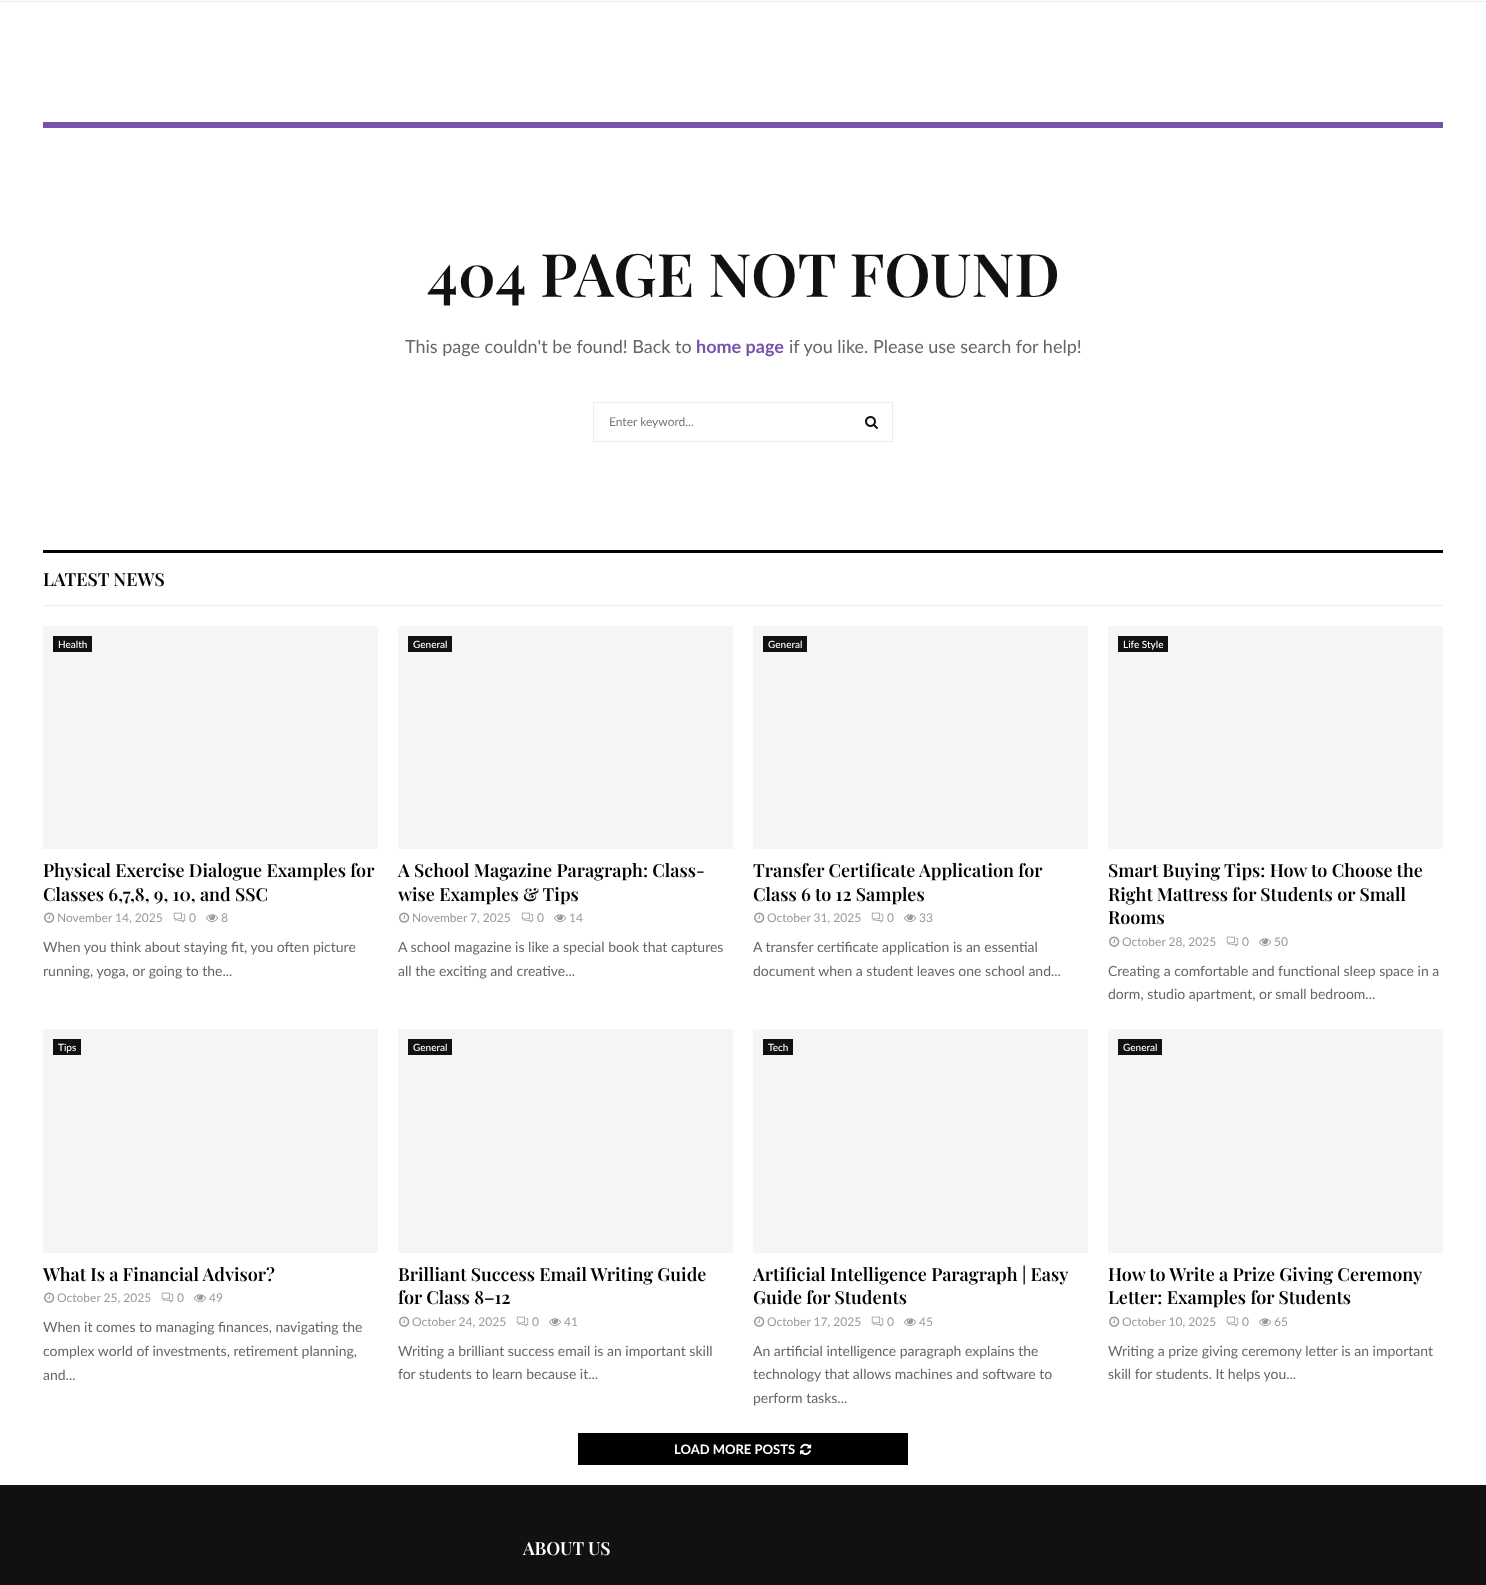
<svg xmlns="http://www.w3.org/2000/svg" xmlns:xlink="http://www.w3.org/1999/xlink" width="1486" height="1585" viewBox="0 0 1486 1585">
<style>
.cls-1{font:600 60px Playfair Display;fill:#111111}
.cls-2{font:18px Lato;fill:#666666}
.cls-3{font:bold 18px Lato;fill:#7851a9}
.cls-4{font:12px Lato;fill:#757575}
.cls-5{font:600 18px Playfair Display;fill:#000000}
.cls-6{font:500 10px Lato;fill:#ffffff}
.cls-7{font:12px Lato;fill:#999999}
.cls-8{font:14px Lato;fill:#666666}
.cls-9{font:bold 13px Lato;fill:#ffffff}
.cls-10{font:600 18px Playfair Display;fill:#ffffff}
</style>
<rect width="100%" height="100%" fill="#ffffff"/>
<rect fill="#ececec" x="0" y="1" width="1486" height="1"/>
<rect fill="#7851a9" x="43" y="122" width="1400" height="6"/>
<rect fill="none" stroke="#ececec" x="593.5" y="402.5" width="299" height="39"/>
<image xlink:href="image0.png" x="865" y="416" width="13" height="13"/>
<rect fill="#ececec" x="43" y="605" width="1400" height="1"/>
<rect fill="#000000" x="43" y="550" width="1400" height="3"/>
<rect fill="#f5f5f5" x="43" y="626" width="335" height="223"/>
<rect fill="#111111" x="53" y="636" width="39" height="16"/>
<image xlink:href="image1.png" x="44" y="912" width="11" height="11"/>
<image xlink:href="image2.png" x="173" y="912" width="13" height="11"/>
<image xlink:href="image3.png" x="206" y="914" width="12" height="8"/>
<rect fill="#f5f5f5" x="398" y="626" width="335" height="223"/>
<rect fill="#111111" x="408" y="636" width="44" height="16"/>
<image xlink:href="image1.png" x="399" y="912" width="11" height="11"/>
<image xlink:href="image2.png" x="521" y="912" width="13" height="11"/>
<image xlink:href="image3.png" x="554" y="914" width="12" height="8"/>
<rect fill="#f5f5f5" x="753" y="626" width="335" height="223"/>
<rect fill="#111111" x="763" y="636" width="44" height="16"/>
<image xlink:href="image1.png" x="754" y="912" width="11" height="11"/>
<image xlink:href="image2.png" x="871" y="912" width="13" height="11"/>
<image xlink:href="image3.png" x="904" y="914" width="12" height="8"/>
<rect fill="#f5f5f5" x="1108" y="626" width="335" height="223"/>
<rect fill="#111111" x="1118" y="636" width="50" height="16"/>
<image xlink:href="image1.png" x="1109" y="936" width="11" height="11"/>
<image xlink:href="image2.png" x="1226" y="936" width="13" height="11"/>
<image xlink:href="image3.png" x="1259" y="938" width="12" height="8"/>
<rect fill="#f5f5f5" x="43" y="1029" width="335" height="224"/>
<rect fill="#111111" x="53" y="1039" width="28" height="16"/>
<image xlink:href="image1.png" x="44" y="1292" width="11" height="11"/>
<image xlink:href="image2.png" x="161" y="1292" width="13" height="11"/>
<image xlink:href="image3.png" x="194" y="1294" width="12" height="8"/>
<rect fill="#f5f5f5" x="398" y="1029" width="335" height="224"/>
<rect fill="#111111" x="408" y="1039" width="44" height="16"/>
<image xlink:href="image1.png" x="399" y="1316" width="11" height="11"/>
<image xlink:href="image2.png" x="516" y="1316" width="13" height="11"/>
<image xlink:href="image3.png" x="549" y="1318" width="12" height="8"/>
<rect fill="#f5f5f5" x="753" y="1029" width="335" height="224"/>
<rect fill="#111111" x="763" y="1039" width="30" height="16"/>
<image xlink:href="image1.png" x="754" y="1316" width="11" height="11"/>
<image xlink:href="image2.png" x="871" y="1316" width="13" height="11"/>
<image xlink:href="image3.png" x="904" y="1318" width="12" height="8"/>
<rect fill="#f5f5f5" x="1108" y="1029" width="335" height="224"/>
<rect fill="#111111" x="1118" y="1039" width="44" height="16"/>
<image xlink:href="image1.png" x="1109" y="1316" width="11" height="11"/>
<image xlink:href="image2.png" x="1226" y="1316" width="13" height="11"/>
<image xlink:href="image3.png" x="1259" y="1318" width="12" height="8"/>
<rect fill="#000000" x="578" y="1433" width="330" height="32"/>
<image xlink:href="image4.png" x="800" y="1443" width="12" height="12"/>
<rect fill="#111111" x="0" y="1485" width="1486" height="100"/>
<text class="cls-1" x="427" y="297">404 PAGE NOT FOUND</text>
<text class="cls-2" x="405" y="353">This page couldn't be found! Back to</text>
<text class="cls-3" x="696" y="353">home page</text>
<text class="cls-2" x="789" y="353">if you like. Please use search for help!</text>
<text class="cls-4" x="609" y="426">Enter keyword...</text>
<text class="cls-5" x="43" y="586">LATEST NEWS</text>
<text class="cls-6" x="58" y="648">Health</text>
<text class="cls-5"><tspan x="43" y="877">Physical Exercise Dialogue Examples for</tspan><tspan x="43" y="901">Classes 6,7,8, 9, 10, and SSC</tspan></text>
<text class="cls-7" x="57" y="922">November 14, 2025</text>
<text class="cls-7" x="189" y="922">0</text>
<text class="cls-7" x="221" y="922">8</text>
<text class="cls-8"><tspan x="43" y="952">When you think about staying fit, you often picture</tspan><tspan x="43" y="976">running, yoga, or going to the...</tspan></text>
<text class="cls-6" x="413" y="648">General</text>
<text class="cls-5"><tspan x="398" y="877">A School Magazine Paragraph: Class-</tspan><tspan x="398" y="901">wise Examples &amp; Tips</tspan></text>
<text class="cls-7" x="412" y="922">November 7, 2025</text>
<text class="cls-7" x="537" y="922">0</text>
<text class="cls-7" x="569" y="922">14</text>
<text class="cls-8"><tspan x="398" y="952">A school magazine is like a special book that captures</tspan><tspan x="398" y="976">all the exciting and creative...</tspan></text>
<text class="cls-6" x="768" y="648">General</text>
<text class="cls-5"><tspan x="753" y="877">Transfer Certificate Application for</tspan><tspan x="753" y="901">Class 6 to 12 Samples</tspan></text>
<text class="cls-7" x="767" y="922">October 31, 2025</text>
<text class="cls-7" x="887" y="922">0</text>
<text class="cls-7" x="919" y="922">33</text>
<text class="cls-8"><tspan x="753" y="952">A transfer certificate application is an essential</tspan><tspan x="753" y="976">document when a student leaves one school and...</tspan></text>
<text class="cls-6" x="1123" y="648">Life Style</text>
<text class="cls-5"><tspan x="1108" y="877">Smart Buying Tips: How to Choose the</tspan><tspan x="1108" y="901">Right Mattress for Students or Small</tspan><tspan x="1108" y="924">Rooms</tspan></text>
<text class="cls-7" x="1122" y="946">October 28, 2025</text>
<text class="cls-7" x="1242" y="946">0</text>
<text class="cls-7" x="1274" y="946">50</text>
<text class="cls-8"><tspan x="1108" y="976">Creating a comfortable and functional sleep space in a</tspan><tspan x="1108" y="999">dorm, studio apartment, or small bedroom...</tspan></text>
<text class="cls-6" x="58" y="1051">Tips</text>
<text class="cls-5" x="43" y="1281">What Is a Financial Advisor?</text>
<text class="cls-7" x="57" y="1302">October 25, 2025</text>
<text class="cls-7" x="177" y="1302">0</text>
<text class="cls-7" x="209" y="1302">49</text>
<text class="cls-8"><tspan x="43" y="1332">When it comes to managing finances, navigating the</tspan><tspan x="43" y="1356">complex world of investments, retirement planning,</tspan><tspan x="43" y="1380">and...</tspan></text>
<text class="cls-6" x="413" y="1051">General</text>
<text class="cls-5"><tspan x="398" y="1281">Brilliant Success Email Writing Guide</tspan><tspan x="398" y="1304">for Class 8–12</tspan></text>
<text class="cls-7" x="412" y="1326">October 24, 2025</text>
<text class="cls-7" x="532" y="1326">0</text>
<text class="cls-7" x="564" y="1326">41</text>
<text class="cls-8"><tspan x="398" y="1356">Writing a brilliant success email is an important skill</tspan><tspan x="398" y="1379">for students to learn because it...</tspan></text>
<text class="cls-6" x="768" y="1051">Tech</text>
<text class="cls-5"><tspan x="753" y="1281">Artificial Intelligence Paragraph | Easy</tspan><tspan x="753" y="1304">Guide for Students</tspan></text>
<text class="cls-7" x="767" y="1326">October 17, 2025</text>
<text class="cls-7" x="887" y="1326">0</text>
<text class="cls-7" x="919" y="1326">45</text>
<text class="cls-8"><tspan x="753" y="1356">An artificial intelligence paragraph explains the</tspan><tspan x="753" y="1379">technology that allows machines and software to</tspan><tspan x="753" y="1403">perform tasks...</tspan></text>
<text class="cls-6" x="1123" y="1051">General</text>
<text class="cls-5"><tspan x="1108" y="1281">How to Write a Prize Giving Ceremony</tspan><tspan x="1108" y="1304">Letter: Examples for Students</tspan></text>
<text class="cls-7" x="1122" y="1326">October 10, 2025</text>
<text class="cls-7" x="1242" y="1326">0</text>
<text class="cls-7" x="1274" y="1326">65</text>
<text class="cls-8"><tspan x="1108" y="1356">Writing a prize giving ceremony letter is an important</tspan><tspan x="1108" y="1379">skill for students. It helps you...</tspan></text>
<text class="cls-9" x="674" y="1454">LOAD MORE POSTS</text>
<text class="cls-10" x="523" y="1555">ABOUT US</text>
</svg>
